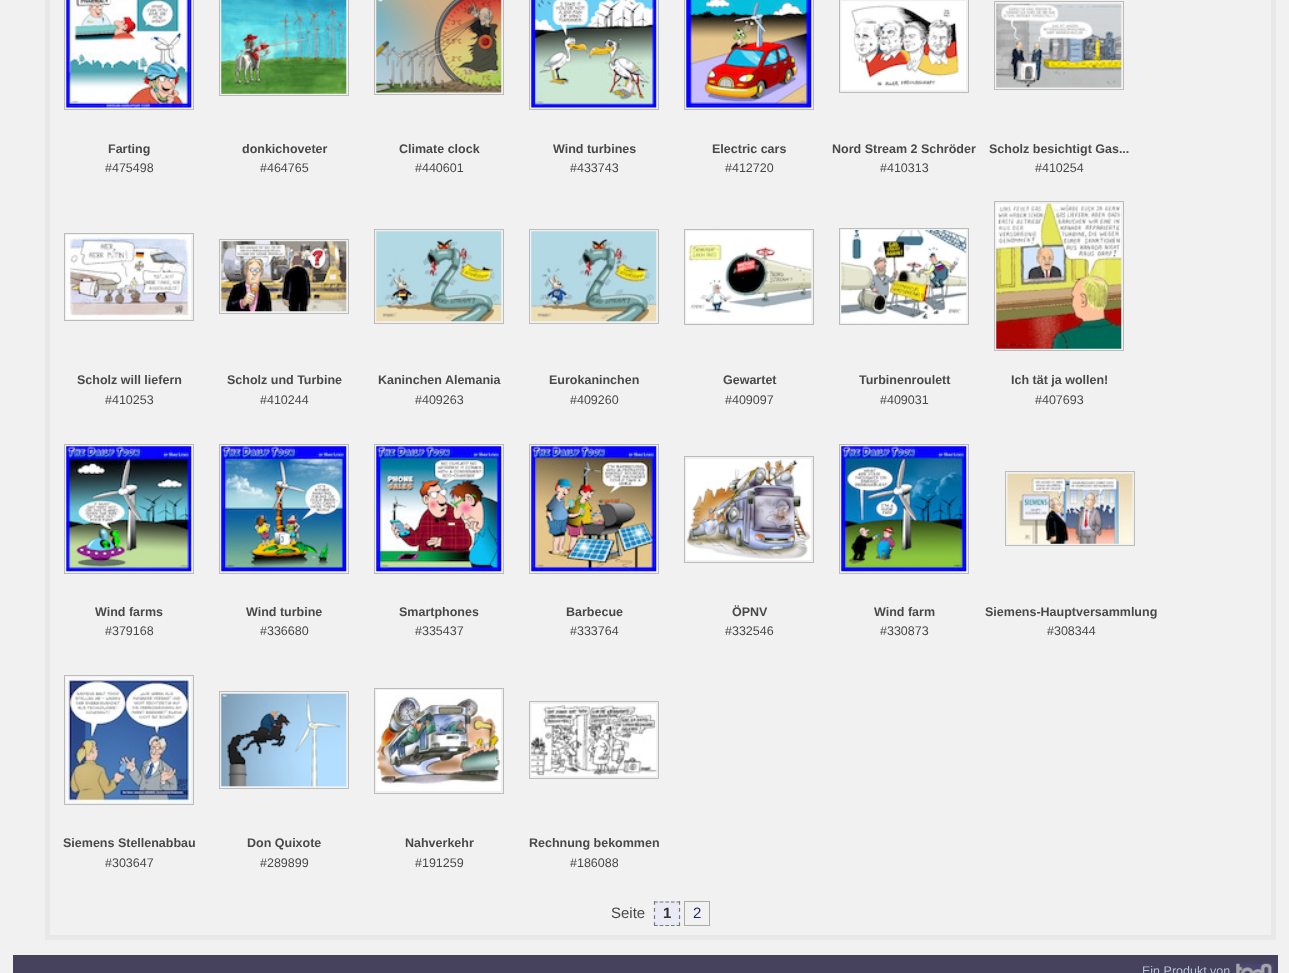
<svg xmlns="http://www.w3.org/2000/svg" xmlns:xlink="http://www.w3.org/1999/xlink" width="1289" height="973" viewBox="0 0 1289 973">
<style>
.cls-1{font:bold 12.5px Liberation Sans;fill:#494949}
.cls-2{font:12.5px Liberation Sans;fill:#494949}
.cls-3{font:15px Liberation Sans;fill:#494949}
.cls-4{font:bold 15px Liberation Sans;fill:#333333}
.cls-5{font:15px Liberation Sans;fill:#1d246c}
.cls-6{font:12.5px Liberation Sans;fill:#b6c2d8}
</style>
<rect width="100%" height="100%" fill="#f1f1f1"/>
<rect fill="none" stroke="#e8e8e8" stroke-width="5" x="47.5" y="-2.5" width="1226" height="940"/>
<rect fill="none" stroke="#bbbbbb" x="64.5" y="-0.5" width="129" height="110"/>
<image xlink:href="image0.png" x="66" y="0" width="126" height="108"/>
<rect fill="none" stroke="#bbbbbb" x="219.5" y="-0.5" width="129" height="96"/>
<image xlink:href="image1.png" x="221" y="0" width="126" height="94"/>
<rect fill="none" stroke="#bbbbbb" x="374.5" y="-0.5" width="129" height="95"/>
<image xlink:href="image2.png" x="376" y="0" width="126" height="93"/>
<rect fill="none" stroke="#bbbbbb" x="529.5" y="-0.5" width="129" height="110"/>
<image xlink:href="image3.png" x="531" y="0" width="126" height="108"/>
<rect fill="none" stroke="#bbbbbb" x="684.5" y="-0.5" width="129" height="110"/>
<image xlink:href="image4.png" x="686" y="0" width="126" height="108"/>
<rect fill="none" stroke="#bbbbbb" x="839.5" y="-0.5" width="129" height="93"/>
<image xlink:href="image5.png" x="841" y="1" width="125" height="89"/>
<rect fill="none" stroke="#bbbbbb" x="994.5" y="1.5" width="129" height="88"/>
<image xlink:href="image6.png" x="996" y="3" width="126" height="85"/>
<rect fill="none" stroke="#bbbbbb" x="64.5" y="233.5" width="129" height="87"/>
<image xlink:href="image7.png" x="66" y="235" width="125" height="84"/>
<rect fill="none" stroke="#bbbbbb" x="219.5" y="239.5" width="129" height="74"/>
<image xlink:href="image8.png" x="221" y="241" width="126" height="71"/>
<rect fill="none" stroke="#bbbbbb" x="374.5" y="229.5" width="129" height="94"/>
<image xlink:href="image9.png" x="376" y="231" width="126" height="91"/>
<rect fill="none" stroke="#bbbbbb" x="529.5" y="229.5" width="129" height="94"/>
<image xlink:href="image10.png" x="531" y="231" width="126" height="91"/>
<rect fill="none" stroke="#bbbbbb" x="684.5" y="229.5" width="129" height="95"/>
<image xlink:href="image11.png" x="686" y="231" width="126" height="92"/>
<rect fill="none" stroke="#bbbbbb" x="839.5" y="228.5" width="129" height="96"/>
<image xlink:href="image12.png" x="841" y="230" width="126" height="93"/>
<rect fill="none" stroke="#bbbbbb" x="994.5" y="201.5" width="129" height="149"/>
<image xlink:href="image13.png" x="996" y="203" width="126" height="146"/>
<rect fill="none" stroke="#bbbbbb" x="64.5" y="444.5" width="129" height="129"/>
<image xlink:href="image14.png" x="66" y="446" width="126" height="126"/>
<rect fill="none" stroke="#bbbbbb" x="219.5" y="444.5" width="129" height="129"/>
<image xlink:href="image15.png" x="221" y="446" width="126" height="126"/>
<rect fill="none" stroke="#bbbbbb" x="374.5" y="444.5" width="129" height="129"/>
<image xlink:href="image16.png" x="376" y="446" width="126" height="126"/>
<rect fill="none" stroke="#bbbbbb" x="529.5" y="444.5" width="129" height="129"/>
<image xlink:href="image17.png" x="531" y="446" width="126" height="126"/>
<rect fill="none" stroke="#bbbbbb" x="684.5" y="456.5" width="129" height="106"/>
<image xlink:href="image18.png" x="686" y="459" width="125" height="101"/>
<rect fill="none" stroke="#bbbbbb" x="839.5" y="444.5" width="129" height="129"/>
<image xlink:href="image19.png" x="841" y="446" width="126" height="126"/>
<rect fill="none" stroke="#bbbbbb" x="1005.5" y="471.5" width="129" height="74"/>
<image xlink:href="image20.png" x="1007" y="473" width="126" height="71"/>
<rect fill="none" stroke="#bbbbbb" x="64.5" y="675.5" width="129" height="129"/>
<image xlink:href="image21.png" x="66" y="677" width="125" height="126"/>
<rect fill="none" stroke="#bbbbbb" x="219.5" y="691.5" width="129" height="97"/>
<image xlink:href="image22.png" x="221" y="693" width="126" height="94"/>
<rect fill="none" stroke="#bbbbbb" x="374.5" y="688.5" width="129" height="105"/>
<image xlink:href="image23.png" x="376" y="690" width="125" height="101"/>
<rect fill="none" stroke="#bbbbbb" x="529.5" y="701.5" width="129" height="77"/>
<image xlink:href="image24.png" x="531" y="704" width="126" height="72"/>
<rect fill="#e9eaf5" x="654" y="901" width="26" height="25"/>
<path fill="none" stroke="#777777" stroke-width="1.2" stroke-dasharray="3.75 1.88" d="M654 902H680"/>
<path fill="none" stroke="#777777" stroke-width="1.2" stroke-dasharray="3.75 3.34" d="M679.5 901V926"/>
<path fill="none" stroke="#777777" stroke-width="1.2" stroke-dasharray="3.75 1.88" d="M654 925.5H680"/>
<path fill="none" stroke="#777777" stroke-width="1.2" stroke-dasharray="3.75 3.34" d="M654.5 901V926"/>
<rect fill="none" stroke="#aaaaaa" x="684.5" y="901.5" width="25" height="24"/>
<rect fill="#46415c" x="13" y="955" width="1265" height="18"/>
<image xlink:href="image25.png" x="1236" y="963" width="38" height="10"/>
<text class="cls-1" x="108" y="153">Farting</text>
<text class="cls-2" x="105" y="172">#475498</text>
<text class="cls-1" x="242" y="153">donkichoveter</text>
<text class="cls-2" x="260" y="172">#464765</text>
<text class="cls-1" x="399" y="153">Climate clock</text>
<text class="cls-2" x="415" y="172">#440601</text>
<text class="cls-1" x="553" y="153">Wind turbines</text>
<text class="cls-2" x="570" y="172">#433743</text>
<text class="cls-1" x="712" y="153">Electric cars</text>
<text class="cls-2" x="725" y="172">#412720</text>
<text class="cls-1" x="832" y="153">Nord Stream 2 Schröder</text>
<text class="cls-2" x="880" y="172">#410313</text>
<text class="cls-1" x="989" y="153">Scholz besichtigt Gas...</text>
<text class="cls-2" x="1035" y="172">#410254</text>
<text class="cls-1" x="77" y="384">Scholz will liefern</text>
<text class="cls-2" x="105" y="404">#410253</text>
<text class="cls-1" x="227" y="384">Scholz und Turbine</text>
<text class="cls-2" x="260" y="404">#410244</text>
<text class="cls-1" x="378" y="384">Kaninchen Alemania</text>
<text class="cls-2" x="415" y="404">#409263</text>
<text class="cls-1" x="549" y="384">Eurokaninchen</text>
<text class="cls-2" x="570" y="404">#409260</text>
<text class="cls-1" x="723" y="384">Gewartet</text>
<text class="cls-2" x="725" y="404">#409097</text>
<text class="cls-1" x="859" y="384">Turbinenroulett</text>
<text class="cls-2" x="880" y="404">#409031</text>
<text class="cls-1" x="1011" y="384">Ich tät ja wollen!</text>
<text class="cls-2" x="1035" y="404">#407693</text>
<text class="cls-1" x="95" y="616">Wind farms</text>
<text class="cls-2" x="105" y="635">#379168</text>
<text class="cls-1" x="246" y="616">Wind turbine</text>
<text class="cls-2" x="260" y="635">#336680</text>
<text class="cls-1" x="399" y="616">Smartphones</text>
<text class="cls-2" x="415" y="635">#335437</text>
<text class="cls-1" x="566" y="616">Barbecue</text>
<text class="cls-2" x="570" y="635">#333764</text>
<text class="cls-1" x="732" y="616">ÖPNV</text>
<text class="cls-2" x="725" y="635">#332546</text>
<text class="cls-1" x="874" y="616">Wind farm</text>
<text class="cls-2" x="880" y="635">#330873</text>
<text class="cls-1" x="985" y="616">Siemens-Hauptversammlung</text>
<text class="cls-2" x="1047" y="635">#308344</text>
<text class="cls-1" x="63" y="847">Siemens Stellenabbau</text>
<text class="cls-2" x="105" y="867">#303647</text>
<text class="cls-1" x="247" y="847">Don Quixote</text>
<text class="cls-2" x="260" y="867">#289899</text>
<text class="cls-1" x="405" y="847">Nahverkehr</text>
<text class="cls-2" x="415" y="867">#191259</text>
<text class="cls-1" x="529" y="847">Rechnung bekommen</text>
<text class="cls-2" x="570" y="867">#186088</text>
<text class="cls-3" x="611" y="918">Seite</text>
<text class="cls-4" x="663" y="918">1</text>
<text class="cls-5" x="693" y="918">2</text>
<text class="cls-6" x="1142" y="975">Ein Produkt von</text>
</svg>
